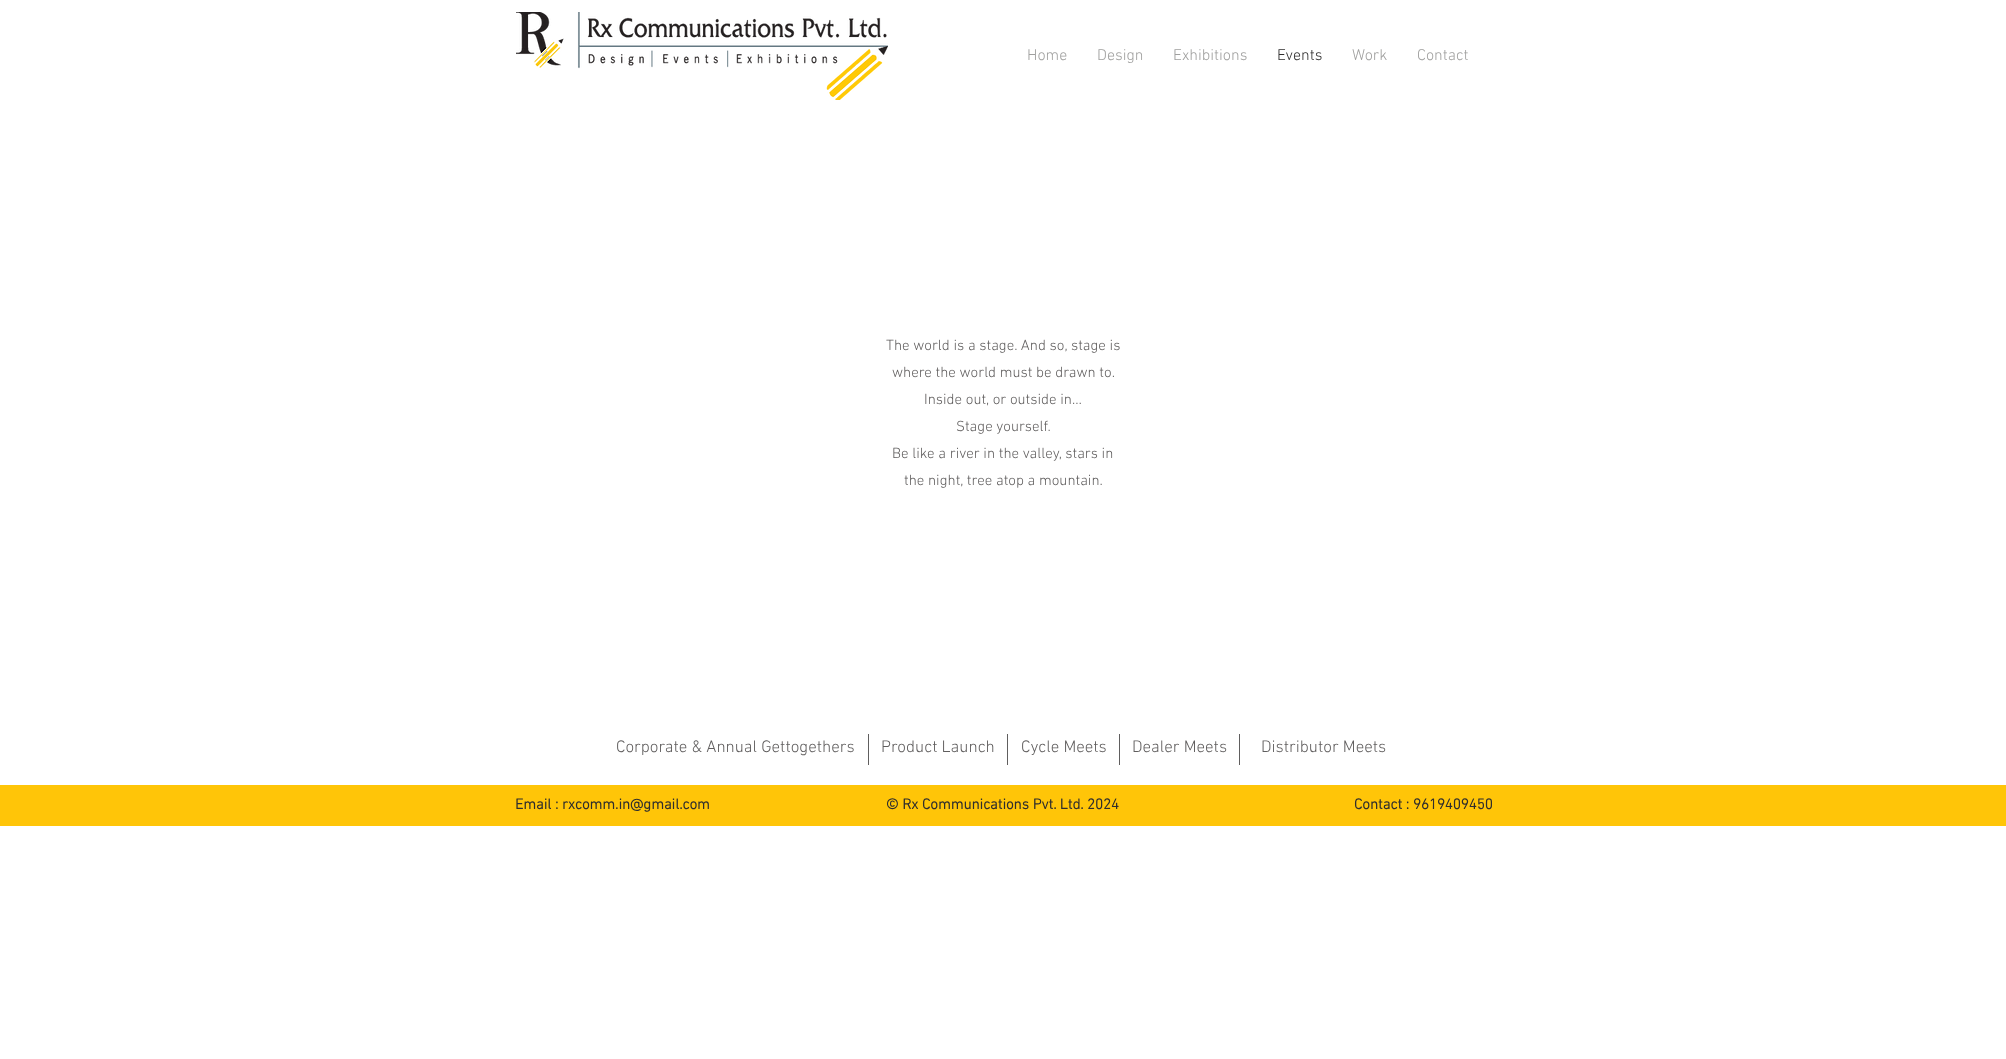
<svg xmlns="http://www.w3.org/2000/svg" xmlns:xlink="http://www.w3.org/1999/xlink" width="2006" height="1059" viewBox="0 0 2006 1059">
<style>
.cls-1{font:300 16px 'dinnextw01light';fill:#a0a09f}
.cls-2{font:300 16px 'dinnextw01light';fill:#2f2e2e}
.cls-3{font:300 15px 'dinnextw01light';fill:#605e5e}
.cls-4{font:300 17px 'dinnextw01light';fill:#605e5e}
.cls-5{font:bold 15px 'dinnextw01light';fill:#2f2e2e}
</style>
<rect width="100%" height="100%" fill="#ffffff"/>
<image xlink:href="image0.png" x="516" y="12" width="372" height="88"/>
<rect fill="#605e5e" x="868" y="734" width="1" height="31"/>
<rect fill="#605e5e" x="1007" y="734" width="1" height="31"/>
<rect fill="#605e5e" x="1119" y="734" width="1" height="31"/>
<rect fill="#605e5e" x="1239" y="734" width="1" height="31"/>
<rect fill="#ffc508" x="0" y="785" width="2006" height="41"/>
<text class="cls-1" x="1027" y="60">Home</text>
<text class="cls-1" x="1097" y="60">Design</text>
<text class="cls-1" x="1173" y="60">Exhibitions</text>
<text class="cls-2" x="1277" y="60">Events</text>
<text class="cls-1" x="1352" y="60">Work</text>
<text class="cls-1" x="1417" y="60">Contact</text>
<text class="cls-3" x="886" y="350">The world is a stage. And so, stage is</text>
<text class="cls-3" x="892" y="377">where the world must be drawn to.</text>
<text class="cls-3" x="924" y="404">Inside out, or outside in…</text>
<text class="cls-3" x="956" y="431">Stage yourself.</text>
<text class="cls-3" x="892" y="458">Be like a river in the valley, stars in</text>
<text class="cls-3" x="904" y="485">the night, tree atop a mountain.</text>
<text class="cls-4" x="616" y="752">Corporate &amp; Annual Gettogethers</text>
<text class="cls-4" x="881" y="752">Product Launch</text>
<text class="cls-4" x="1021" y="752">Cycle Meets</text>
<text class="cls-4" x="1132" y="752">Dealer Meets</text>
<text class="cls-4" x="1261" y="752">Distributor Meets</text>
<text class="cls-5" x="515" y="809">Email : rxcomm.in@gmail.com</text>
<text class="cls-5" x="886" y="809">© Rx Communications Pvt. Ltd. 2024</text>
<text class="cls-5" x="1354" y="809">Contact : 9619409450</text>
</svg>
